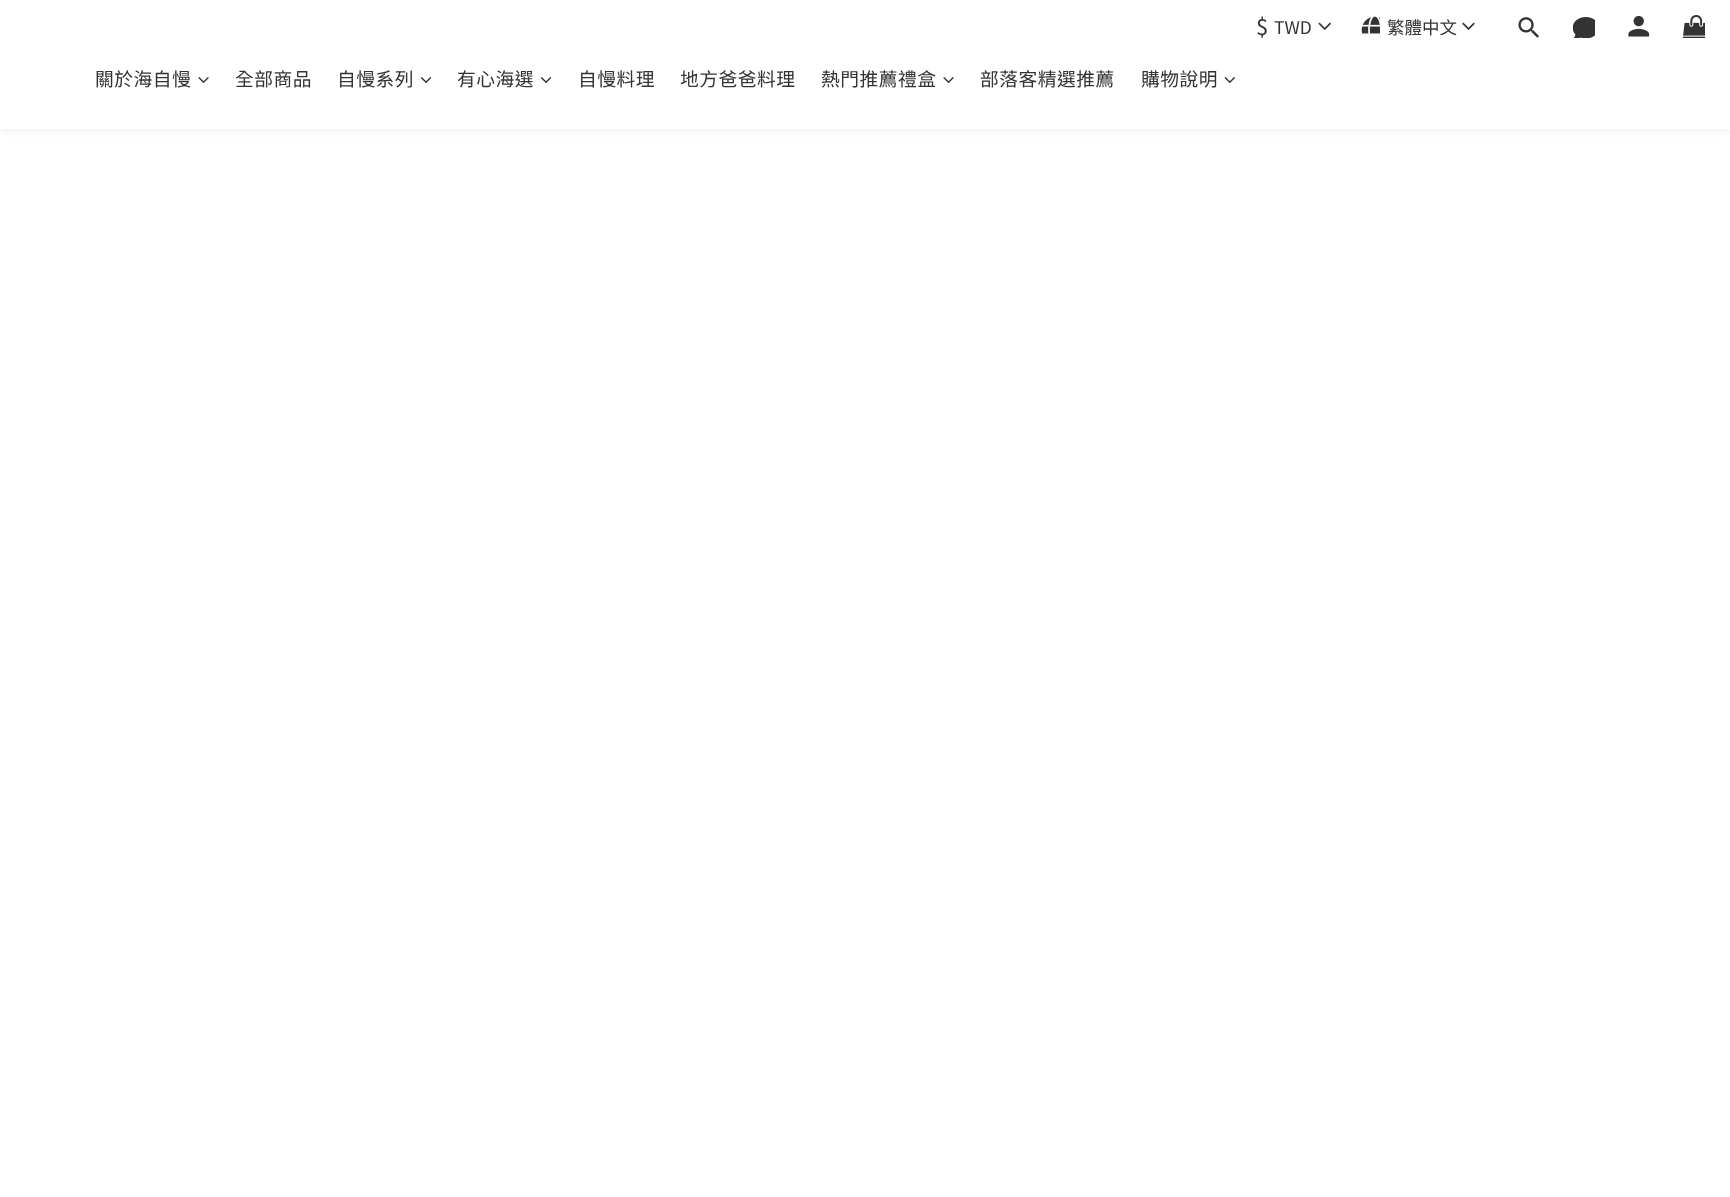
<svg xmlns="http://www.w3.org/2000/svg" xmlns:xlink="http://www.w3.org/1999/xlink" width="1730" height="1197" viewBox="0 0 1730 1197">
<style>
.cls-1{font:22px Noto Sans TC;letter-spacing:1px;fill:#333333}
.cls-2{font:17.5px Noto Sans TC;fill:#333333}
.cls-3{font:18.75px Noto Sans TC;letter-spacing:0.5px;fill:#333333}
</style>
<rect width="100%" height="100%" fill="#ffffff"/>
<rect fill="#000000" fill-opacity="0.06" filter="blur(4px)" x="0" y="3" width="1730" height="128"/>
<rect fill="#ffffff" x="0" y="0" width="1730" height="129"/>
<image xlink:href="image0.png" x="1318" y="22" width="13" height="8"/>
<image xlink:href="image1.png" x="1361" y="16" width="19" height="18"/>
<image xlink:href="image2.png" x="1462" y="22" width="13" height="8"/>
<image xlink:href="image3.png" x="1518" y="17" width="21" height="21"/>
<image xlink:href="image4.png" x="1573" y="17" width="22" height="21"/>
<image xlink:href="image5.png" x="1628" y="15" width="22" height="22"/>
<image xlink:href="image6.png" x="1683" y="15" width="22" height="23"/>
<image xlink:href="image7.png" x="198" y="77" width="11" height="6"/>
<image xlink:href="image8.png" x="420" y="77" width="12" height="6"/>
<image xlink:href="image8.png" x="540" y="77" width="12" height="6"/>
<image xlink:href="image7.png" x="943" y="77" width="11" height="6"/>
<image xlink:href="image9.png" x="1224" y="77" width="11" height="6"/>
<text class="cls-1" x="1256" y="35">$</text>
<text class="cls-2" x="1274" y="34">TWD</text>
<text class="cls-2" x="1387" y="34">繁體中文</text>
<text class="cls-3" x="95" y="86">關於海自慢</text>
<text class="cls-3" x="235" y="86">全部商品</text>
<text class="cls-3" x="337" y="86">自慢系列</text>
<text class="cls-3" x="457" y="86">有心海選</text>
<text class="cls-3" x="578" y="86">自慢料理</text>
<text class="cls-3" x="680" y="86">地方爸爸料理</text>
<text class="cls-3" x="821" y="86">熱門推薦禮盒</text>
<text class="cls-3" x="980" y="86">部落客精選推薦</text>
<text class="cls-3" x="1141" y="86">購物說明</text>
</svg>
